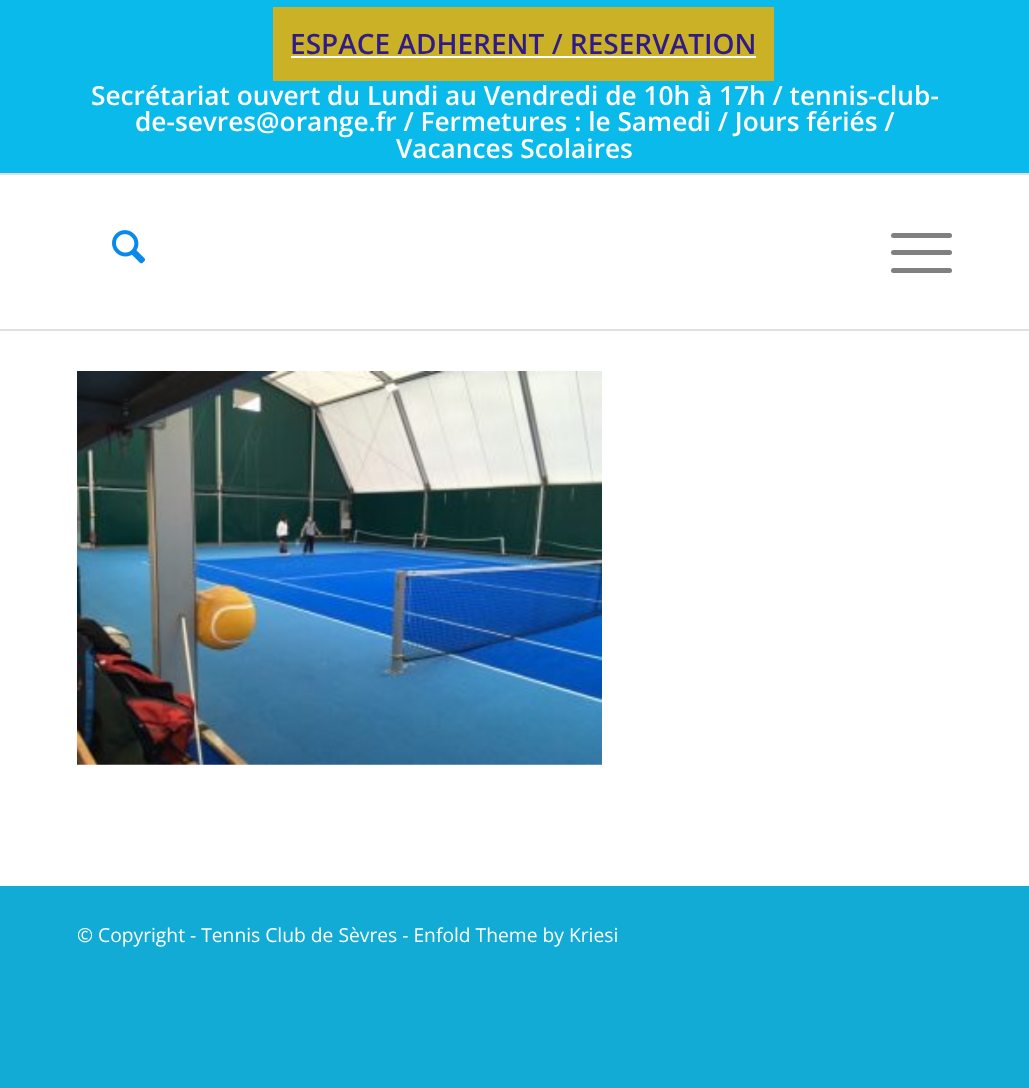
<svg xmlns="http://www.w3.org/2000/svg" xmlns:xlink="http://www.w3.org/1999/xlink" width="1029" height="1088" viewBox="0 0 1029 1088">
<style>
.cls-1{font:600 28px Open Sans;fill:#311b88}
.cls-2{font:600 26.25px Open Sans;fill:#ffffff}
.cls-3{font:19.25px Open Sans;fill:#ffffff}
</style>
<rect width="100%" height="100%" fill="#11abd6"/>
<rect fill="#ffffff" x="0" y="175" width="1029" height="711"/>
<rect fill="#09baeb" x="0" y="0" width="1029" height="173"/>
<rect fill="#e1e1e1" x="0" y="173" width="1029" height="2"/>
<rect fill="#cab125" x="273" y="7" width="501" height="74"/>
<rect fill="#ffffff" x="291" y="56" width="465" height="2"/>
<rect fill="#e1e1e1" x="0" y="329" width="1029" height="2"/>
<image xlink:href="image0.png" x="112" y="230" width="33" height="34"/>
<rect fill="#808080" x="891" y="250" width="61" height="5" rx="2.5"/>
<rect fill="#808080" x="891" y="233" width="61" height="5" rx="2.5"/>
<rect fill="#808080" x="891" y="268" width="61" height="5" rx="2.5"/>
<image xlink:href="image1.png" x="77" y="371" width="525" height="394"/>
<text class="cls-1" x="290" y="54">ESPACE ADHERENT / RESERVATION</text>
<text class="cls-2" x="91" y="105">Secrétariat ouvert du Lundi au Vendredi de 10h à 17h / tennis-club-</text>
<text class="cls-2" x="135" y="131">de-sevres@orange.fr / Fermetures : le Samedi / Jours fériés /</text>
<text class="cls-2" x="396" y="158">Vacances Scolaires</text>
<text class="cls-3" x="77" y="942">© Copyright - Tennis Club de Sèvres - Enfold Theme by Kriesi</text>
</svg>
